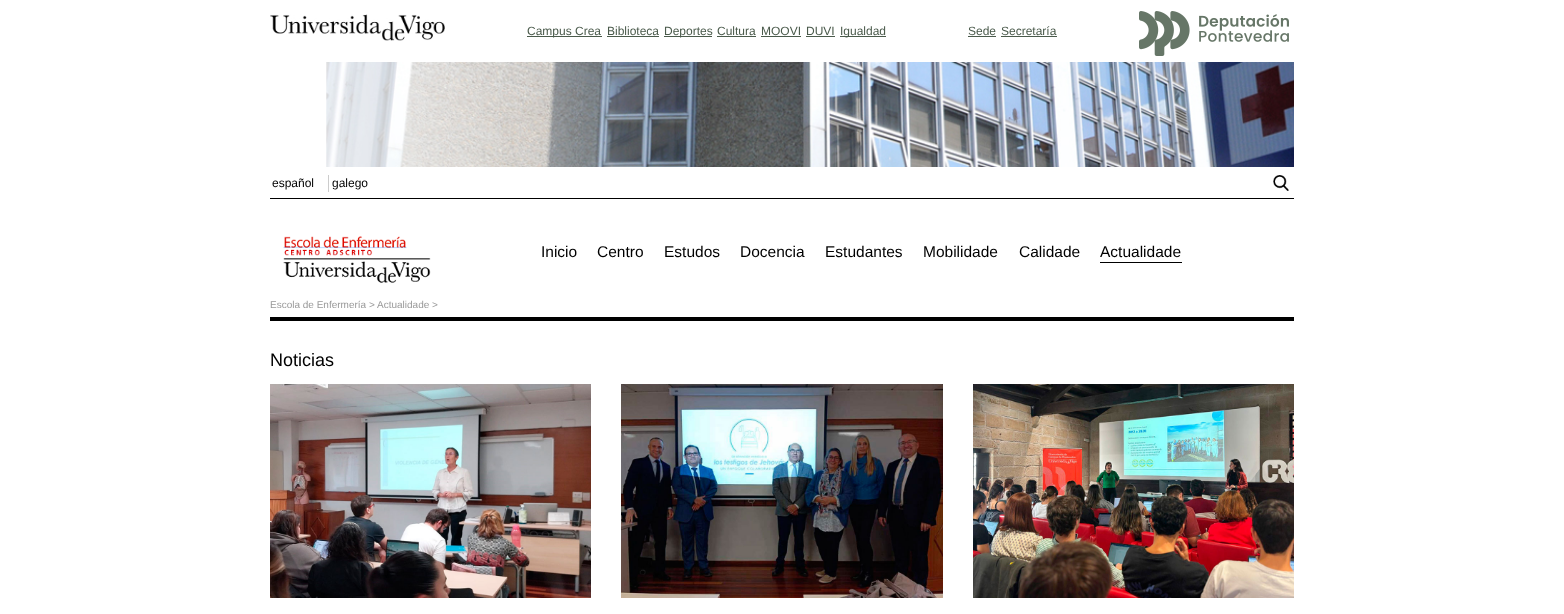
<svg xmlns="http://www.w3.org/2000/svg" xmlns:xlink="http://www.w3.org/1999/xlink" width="1564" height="614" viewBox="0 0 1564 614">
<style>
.cls-1{font:12px Liberation Sans;fill:#4a5a4b}
.cls-2{font:12px Liberation Sans;fill:#000000}
.cls-3{font:15.5px Liberation Sans;fill:#000000}
.cls-4{font:10px Liberation Sans;fill:#999999}
.cls-5{font:18px Liberation Sans;fill:#000000}
</style>
<rect width="100%" height="100%" fill="#ffffff"/>
<image xlink:href="image0.png" x="270" y="14" width="175" height="27"/>
<rect fill="#4a5a4b" x="527" y="36" width="75" height="1"/>
<rect fill="#4a5a4b" x="607" y="36" width="52" height="1"/>
<rect fill="#4a5a4b" x="664" y="36" width="48" height="1"/>
<rect fill="#4a5a4b" x="717" y="36" width="39" height="1"/>
<rect fill="#4a5a4b" x="761" y="36" width="40" height="1"/>
<rect fill="#4a5a4b" x="806" y="36" width="29" height="1"/>
<rect fill="#4a5a4b" x="840" y="36" width="46" height="1"/>
<rect fill="#4a5a4b" x="968" y="36" width="28" height="1"/>
<rect fill="#4a5a4b" x="1001" y="36" width="56" height="1"/>
<image xlink:href="image1.png" x="1139" y="11" width="150" height="45"/>
<image xlink:href="image2.png" x="326" y="62" width="968" height="105"/>
<rect fill="#000000" x="270" y="198" width="1024" height="1"/>
<rect fill="#cccccc" x="328" y="175" width="1" height="17"/>
<image xlink:href="image3.png" x="1273" y="175" width="16" height="16"/>
<image xlink:href="image4.png" x="283" y="236" width="148" height="47"/>
<rect fill="#000000" x="1100" y="262" width="82" height="1"/>
<rect fill="#000000" x="270" y="317" width="1024" height="4"/>
<image xlink:href="image5.png" x="270" y="384" width="321" height="214"/>
<image xlink:href="image6.png" x="621" y="384" width="322" height="214"/>
<image xlink:href="image7.png" x="973" y="384" width="321" height="214"/>
<text class="cls-1" x="527" y="35">Campus Crea</text>
<text class="cls-1" x="607" y="35">Biblioteca</text>
<text class="cls-1" x="664" y="35">Deportes</text>
<text class="cls-1" x="717" y="35">Cultura</text>
<text class="cls-1" x="761" y="35">MOOVI</text>
<text class="cls-1" x="806" y="35">DUVI</text>
<text class="cls-1" x="840" y="35">Igualdad</text>
<text class="cls-1" x="968" y="35">Sede</text>
<text class="cls-1" x="1001" y="35">Secretaría</text>
<text class="cls-2" x="272" y="187">español</text>
<text class="cls-2" x="332" y="187">galego</text>
<text class="cls-3" x="541" y="257">Inicio</text>
<text class="cls-3" x="597" y="257">Centro</text>
<text class="cls-3" x="664" y="257">Estudos</text>
<text class="cls-3" x="740" y="257">Docencia</text>
<text class="cls-3" x="825" y="257">Estudantes</text>
<text class="cls-3" x="923" y="257">Mobilidade</text>
<text class="cls-3" x="1019" y="257">Calidade</text>
<text class="cls-3" x="1100" y="257">Actualidade</text>
<text class="cls-4" x="270" y="308">Escola de Enfermería &gt; Actualidade &gt;</text>
<text class="cls-5" x="270" y="366">Noticias</text>
</svg>
